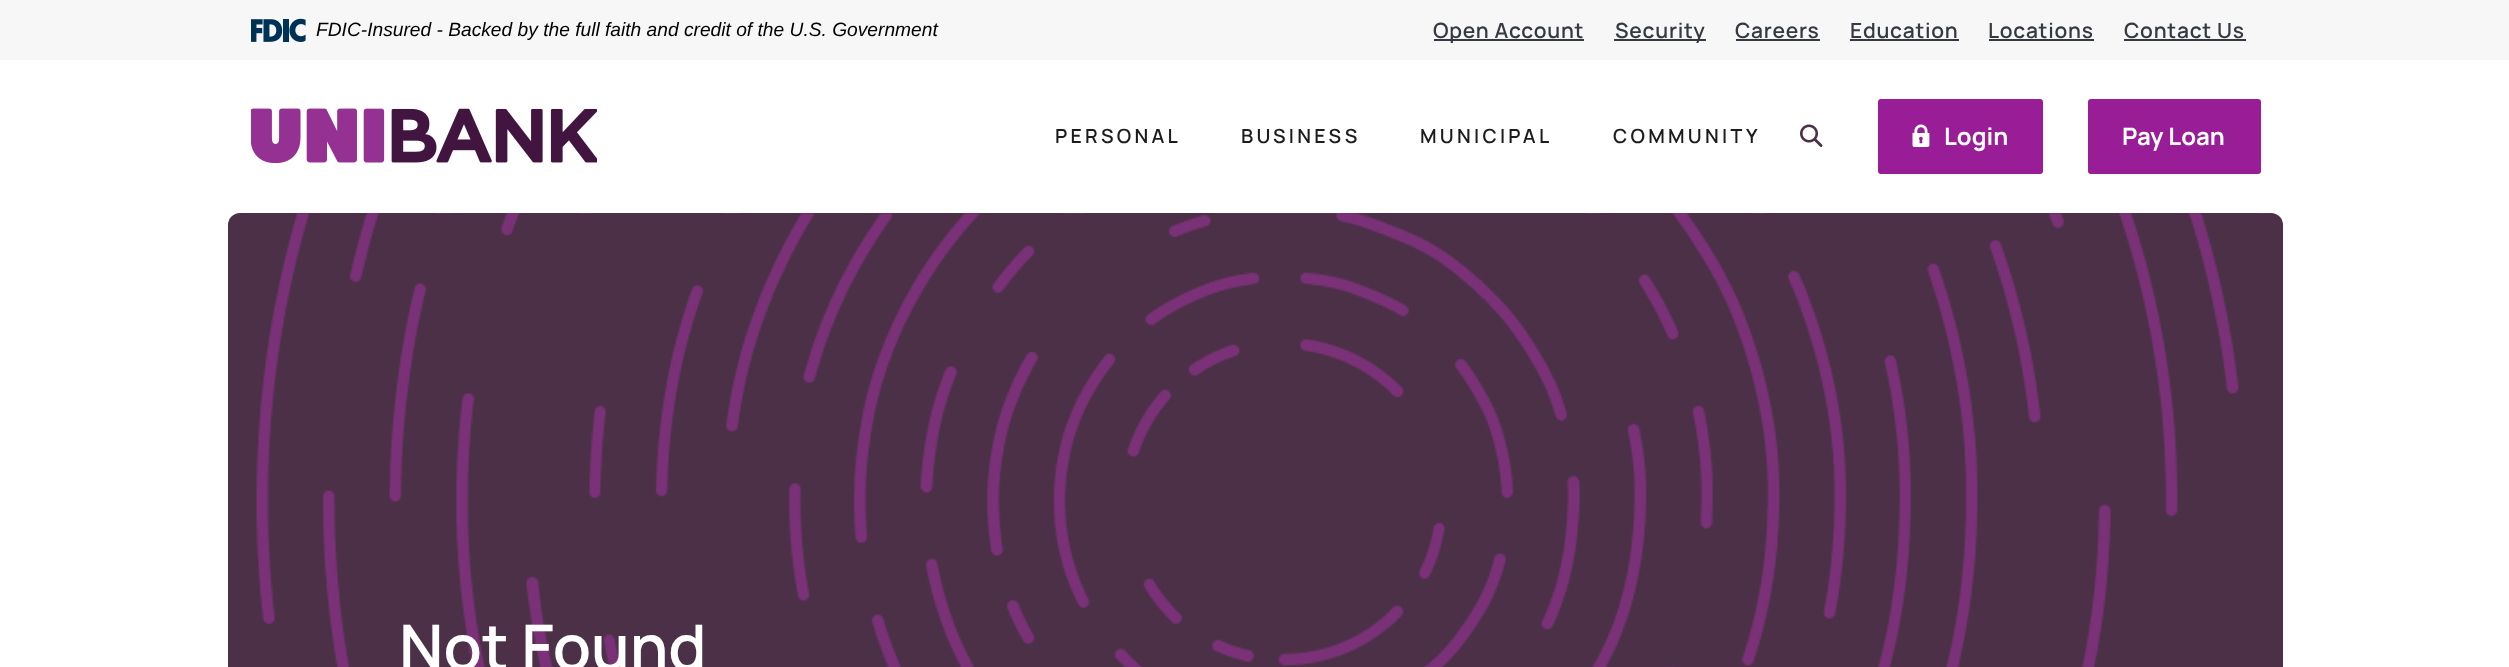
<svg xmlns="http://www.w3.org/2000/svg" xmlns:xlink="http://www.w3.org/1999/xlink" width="2509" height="667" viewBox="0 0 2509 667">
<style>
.cls-1{font:italic 19.2px Liberation Sans;fill:#000000}
.cls-2{font:600 21px Manrope;letter-spacing:0.75px;fill:#343a40}
.cls-3{font:600 19.5px Manrope;letter-spacing:3.25px;fill:#1c1c1c}
.cls-4{font:bold 24px Manrope;fill:#ffffff}
.cls-5{font:600 63px Manrope;fill:#ffffff}
</style>
<rect width="100%" height="100%" fill="#ffffff"/>
<rect fill="#f7f7f7" x="0" y="0" width="2509" height="60"/>
<image xlink:href="image0.png" x="251" y="18" width="55" height="24"/>
<rect fill="#343a40" x="1434" y="39" width="150" height="2"/>
<rect fill="#343a40" x="1614" y="39" width="92" height="2"/>
<rect fill="#343a40" x="1736" y="39" width="84" height="2"/>
<rect fill="#343a40" x="1850" y="39" width="109" height="2"/>
<rect fill="#343a40" x="1989" y="39" width="105" height="2"/>
<rect fill="#343a40" x="2124" y="39" width="122" height="2"/>
<image xlink:href="image1.png" x="251" y="108" width="346" height="55"/>
<image xlink:href="image2.png" x="1800" y="124" width="23" height="23"/>
<rect fill="#981d97" stroke="#981d97" stroke-width="2" x="1879" y="100" width="163" height="73" rx="2"/>
<image xlink:href="image3.png" x="1912" y="124" width="18" height="23"/>
<rect fill="#981d97" stroke="#981d97" stroke-width="2" x="2089" y="100" width="171" height="73" rx="2"/>
<rect fill="#4b3048" x="228" y="213" width="2055" height="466" rx="12"/>
<image xlink:href="image4.png" x="236" y="213" width="2035" height="454"/>
<text class="cls-1" x="316" y="36">FDIC-Insured - Backed by the full faith and credit of the U.S. Government</text>
<text class="cls-2" x="1433" y="38">Open Account</text>
<text class="cls-2" x="1615" y="38">Security</text>
<text class="cls-2" x="1735" y="38">Careers</text>
<text class="cls-2" x="1850" y="38">Education</text>
<text class="cls-2" x="1988" y="38">Locations</text>
<text class="cls-2" x="2124" y="38">Contact Us</text>
<text class="cls-3" x="1055" y="143">PERSONAL</text>
<text class="cls-3" x="1241" y="143">BUSINESS</text>
<text class="cls-3" x="1420" y="143">MUNICIPAL</text>
<text class="cls-3" x="1613" y="143">COMMUNITY</text>
<text class="cls-4" x="1944" y="145">Login</text>
<text class="cls-4" x="2122" y="145">Pay Loan</text>
<text class="cls-5" x="399" y="670">Not Found</text>
</svg>
